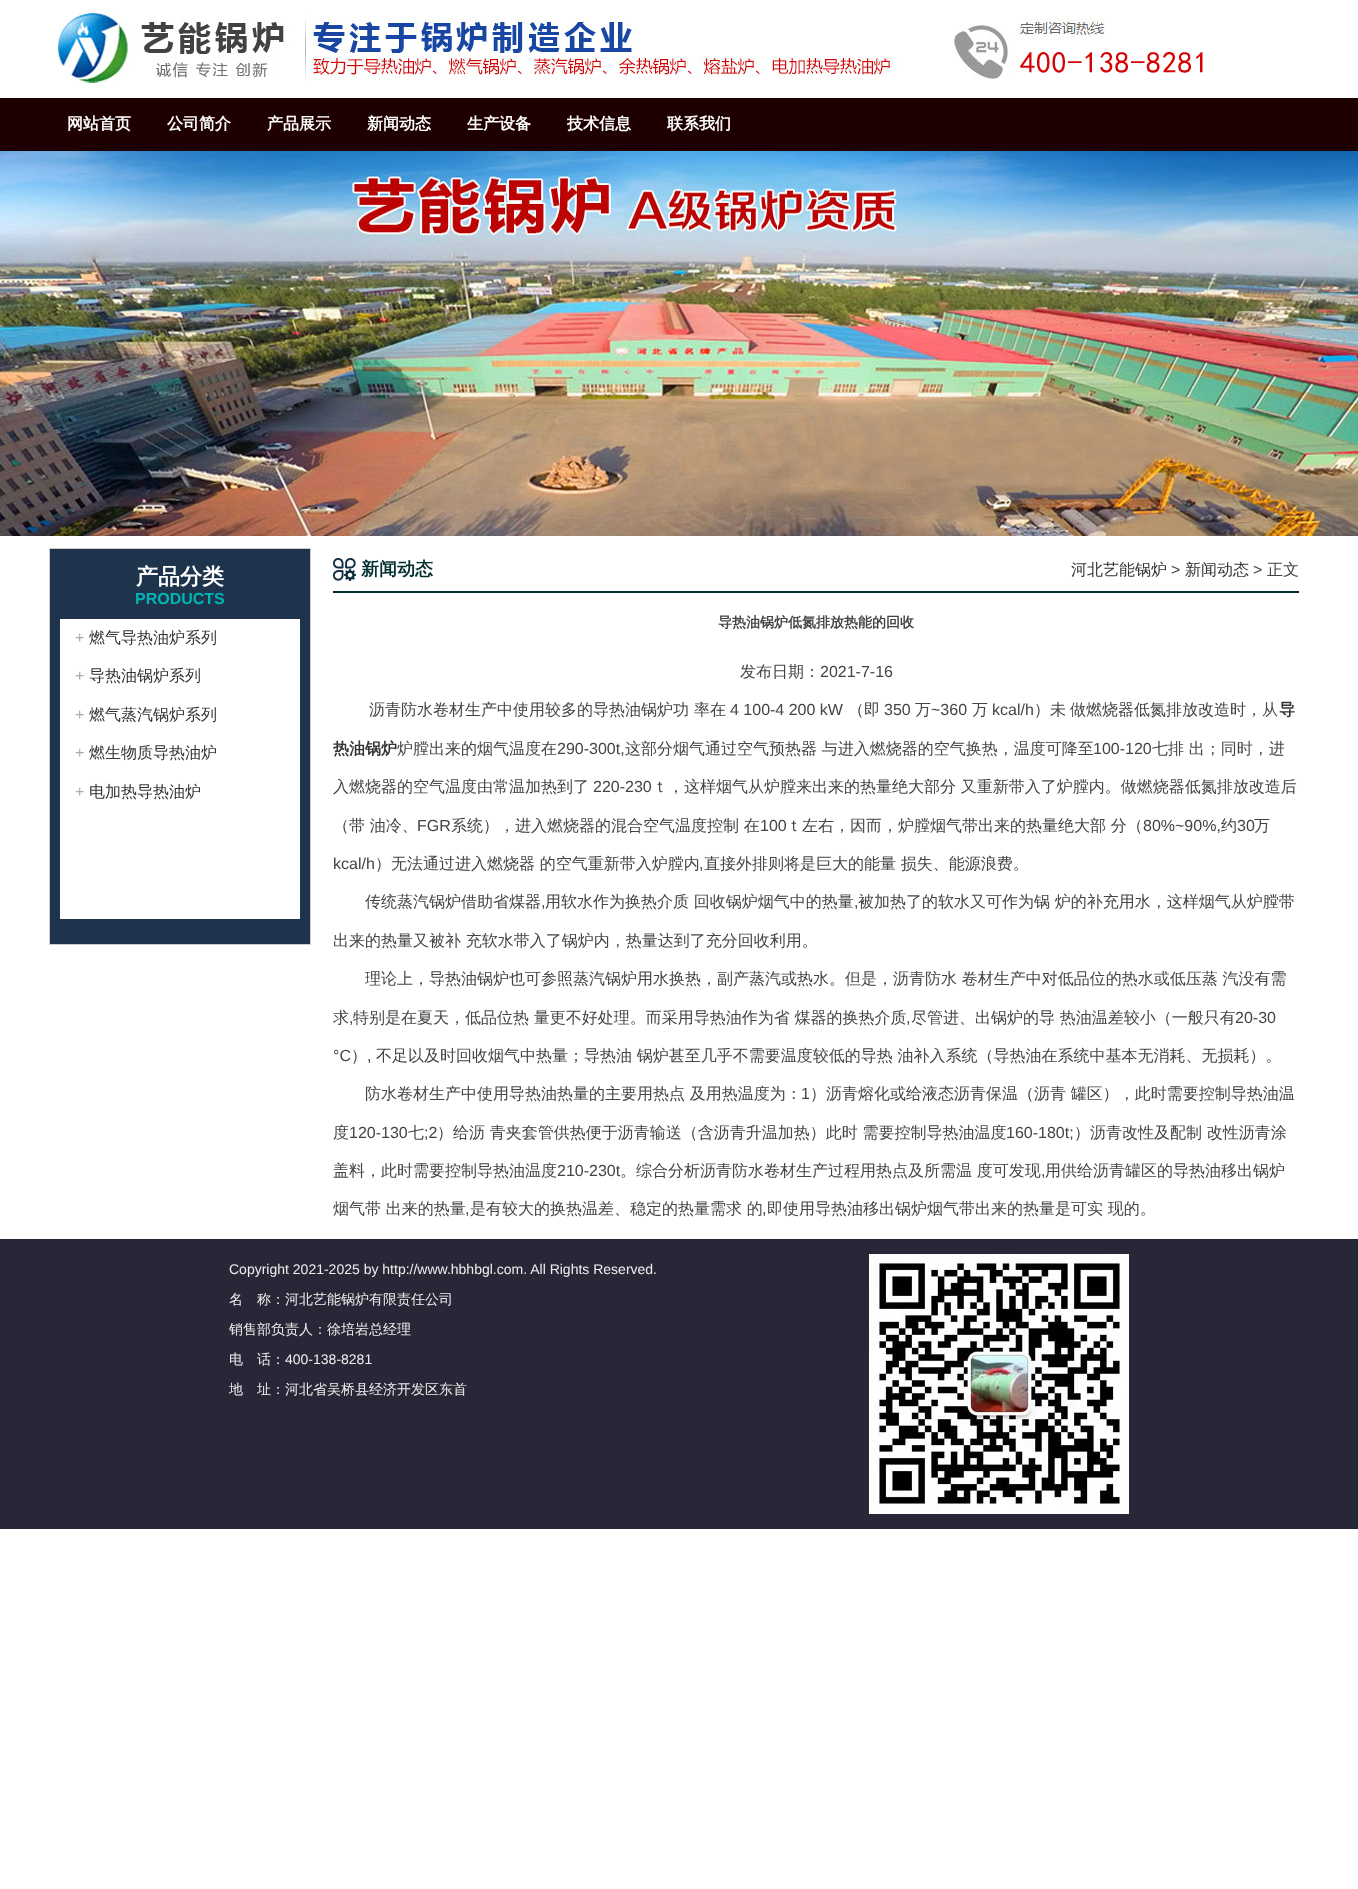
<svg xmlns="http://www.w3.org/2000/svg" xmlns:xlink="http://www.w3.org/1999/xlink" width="1358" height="1889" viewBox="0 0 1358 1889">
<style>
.cls-1{font:bold 16px WenQuanYi Zen Hei;fill:#ffffff}
.cls-2{font:bold 22px WenQuanYi Zen Hei;fill:#ffffff}
.cls-3{font:bold 16px Liberation Sans;fill:#00b5b5}
.cls-4{font:16px Liberation Sans;fill:#aaaaaa}
.cls-5{font:500 16px WenQuanYi Zen Hei;fill:#333333}
.cls-6{font:bold 18px WenQuanYi Zen Hei;fill:#002f2f}
.cls-7{font:16px Liberation Sans;fill:#444444}
.cls-8{font:500 16px WenQuanYi Zen Hei;fill:#444444}
.cls-9{font:bold 14px WenQuanYi Zen Hei;fill:#444444}
.cls-10{font:bold 16px WenQuanYi Zen Hei;fill:#333333}
.cls-11{font:14px Liberation Sans;fill:#eeeeee}
.cls-12{font:500 14px WenQuanYi Zen Hei;fill:#eeeeee}
</style>
<rect width="100%" height="100%" fill="#ffffff"/>
<image xlink:href="image0.png" x="0" y="98" width="1358" height="53"/>
<image xlink:href="image1.png" x="57" y="8" width="1146" height="80"/>
<image xlink:href="image2.png" x="0" y="151" width="1358" height="385"/>
<rect fill="#1e344c" stroke="#cccccc" x="49.5" y="548.5" width="261" height="396"/>
<rect fill="#ffffff" x="60" y="619" width="240" height="300"/>
<image xlink:href="image3.png" x="333" y="558" width="23" height="23"/>
<rect fill="#002f2f" x="333" y="591" width="966" height="2"/>
<rect fill="#282737" x="0" y="1239" width="1358" height="290"/>
<image xlink:href="image4.png" x="869" y="1254" width="260" height="260"/>
<text class="cls-1" x="67" y="129">网站首页</text>
<text class="cls-1" x="167" y="129">公司简介</text>
<text class="cls-1" x="267" y="129">产品展示</text>
<text class="cls-1" x="367" y="129">新闻动态</text>
<text class="cls-1" x="467" y="129">生产设备</text>
<text class="cls-1" x="567" y="129">技术信息</text>
<text class="cls-1" x="667" y="129">联系我们</text>
<text class="cls-2" x="136" y="584">产品分类</text>
<text class="cls-3" x="135" y="604">PRODUCTS</text>
<text class="cls-4" x="75" y="643">+</text>
<text class="cls-5" x="89" y="643">燃气导热油炉系列</text>
<text class="cls-4" x="75" y="681">+</text>
<text class="cls-5" x="89" y="681">导热油锅炉系列</text>
<text class="cls-4" x="75" y="720">+</text>
<text class="cls-5" x="89" y="720">燃气蒸汽锅炉系列</text>
<text class="cls-4" x="75" y="758">+</text>
<text class="cls-5" x="89" y="758">燃生物质导热油炉</text>
<text class="cls-4" x="75" y="797">+</text>
<text class="cls-5" x="89" y="797">电加热导热油炉</text>
<text class="cls-6" x="361" y="575">新闻动态</text>
<text class="cls-5" x="1071" y="575">河北艺能锅炉</text>
<text class="cls-7" x="1171" y="575">&gt;</text>
<text class="cls-5" x="1185" y="575">新闻动态</text>
<text class="cls-7" x="1253" y="575">&gt;</text>
<text class="cls-8" x="1267" y="575">正文</text>
<text class="cls-9" x="718" y="627">导热油锅炉低氮排放热能的回收</text>
<text class="cls-8" x="740" y="677">发布日期：</text>
<text class="cls-7" x="820" y="677">2021-7-16</text>
<text class="cls-8" x="369" y="715">沥青防水卷材生产中使用较多的导热油锅炉功</text>
<text class="cls-8" x="694" y="715">率在</text>
<text class="cls-7" x="730" y="715">4 100-4 200 kW</text>
<text class="cls-8" x="848" y="715">（即</text>
<text class="cls-7" x="884" y="715">350</text>
<text class="cls-8" x="915" y="715">万</text>
<text class="cls-7" x="931" y="715">~360</text>
<text class="cls-8" x="972" y="715">万</text>
<text class="cls-7" x="992" y="715">kcal/h</text>
<text class="cls-8" x="1034" y="715">）未</text>
<text class="cls-8" x="1070" y="715">做燃烧器低氮排放改造时，从</text>
<text class="cls-10" x="1279" y="715">导</text>
<text class="cls-10" x="333" y="754">热油锅炉</text>
<text class="cls-8" x="397" y="754">炉膛出来的烟气温度在</text>
<text class="cls-7" x="557" y="754">290-300t,</text>
<text class="cls-8" x="625" y="754">这部分烟气通过空气预热器 与进入燃烧器的空气换热，温度可降至</text>
<text class="cls-7" x="1093" y="754">100-120</text>
<text class="cls-8" x="1152" y="754">七排 出；同时，进</text>
<text class="cls-8" x="333" y="792">入燃烧器的空气温度由常温加热到了</text>
<text class="cls-7" x="593" y="792">220-230</text>
<text class="cls-8" x="652" y="792">ｔ，这样烟气从炉膛来出来的热量绝大部分 又重新带入了炉膛内。做燃烧器低氮排放改造后</text>
<text class="cls-8" x="333" y="831">（带 油冷、</text>
<text class="cls-7" x="417" y="831">FGR</text>
<text class="cls-8" x="451" y="831">系统），进入燃烧器的混合空气温度控制 在</text>
<text class="cls-7" x="760" y="831">100</text>
<text class="cls-8" x="786" y="831">ｔ左右，因而，炉膛烟气带出来的热量绝大部 分（</text>
<text class="cls-7" x="1143" y="831">80%~90%,</text>
<text class="cls-8" x="1221" y="831">约</text>
<text class="cls-7" x="1237" y="831">30</text>
<text class="cls-8" x="1254" y="831">万</text>
<text class="cls-7" x="333" y="869">kcal/h</text>
<text class="cls-8" x="375" y="869">）无法通过进入燃烧器 的空气重新带入炉膛内</text>
<text class="cls-7" x="699" y="869">,</text>
<text class="cls-8" x="704" y="869">直接外排则将是巨大的能量 损失、能源浪费。</text>
<text class="cls-8" x="365" y="907">传统蒸汽锅炉借助省煤器</text>
<text class="cls-7" x="541" y="907">,</text>
<text class="cls-8" x="545" y="907">用软水作为换热介质 回收锅炉烟气中的热量</text>
<text class="cls-7" x="854" y="907">,</text>
<text class="cls-8" x="858" y="907">被加热了的软水又可作为锅 炉的补充用水，这样烟气从炉膛带</text>
<text class="cls-8" x="333" y="946">出来的热量又被补 充软水带入了锅炉内，热量达到了充分回收利用。</text>
<text class="cls-8" x="365" y="984">理论上，导热油锅炉也可参照蒸汽锅炉用水换热，副产蒸汽或热水。但是，沥青防水 卷材生产中对低品位的热水或低压蒸 汽没有需</text>
<text class="cls-8" x="333" y="1023">求</text>
<text class="cls-7" x="349" y="1023">,</text>
<text class="cls-8" x="353" y="1023">特别是在夏天，低品位热 量更不好处理。而采用导热油作为省 煤器的换热介质</text>
<text class="cls-7" x="906" y="1023">,</text>
<text class="cls-8" x="911" y="1023">尽管进、出锅炉的导 热油温差较小（一般只有</text>
<text class="cls-7" x="1235" y="1023">20-30</text>
<text class="cls-7" x="333" y="1061">°C</text>
<text class="cls-8" x="351" y="1061">）</text>
<text class="cls-7" x="367" y="1061">,</text>
<text class="cls-8" x="376" y="1061">不足以及时回收烟气中热量；导热油 锅炉甚至几乎不需要温度较低的导热 油补入系统（导热油在系统中基本无消耗、无损耗）。</text>
<text class="cls-8" x="365" y="1099">防水卷材生产中使用导热油热量的主要用热点 及用热温度为：</text>
<text class="cls-7" x="801" y="1099">1</text>
<text class="cls-8" x="810" y="1099">）沥青熔化或给液态沥青保温（沥青 罐区），此时需要控制导热油温</text>
<text class="cls-8" x="333" y="1138">度</text>
<text class="cls-7" x="349" y="1138">120-130</text>
<text class="cls-8" x="408" y="1138">七</text>
<text class="cls-7" x="424" y="1138">;2</text>
<text class="cls-8" x="437" y="1138">）给沥 青夹套管供热便于沥青输送（含沥青升温加热）此时 需要控制导热油温度</text>
<text class="cls-7" x="1006" y="1138">160-180t;</text>
<text class="cls-8" x="1074" y="1138">）沥青改性及配制 改性沥青涂</text>
<text class="cls-8" x="333" y="1176">盖料，此时需要控制导热油温度</text>
<text class="cls-7" x="557" y="1176">210-230t</text>
<text class="cls-8" x="620" y="1176">。综合分析沥青防水卷材生产过程用热点及所需温 度可发现</text>
<text class="cls-7" x="1041" y="1176">,</text>
<text class="cls-8" x="1045" y="1176">用供给沥青罐区的导热油移出锅炉</text>
<text class="cls-8" x="333" y="1214">烟气带 出来的热量</text>
<text class="cls-7" x="465" y="1214">,</text>
<text class="cls-8" x="470" y="1214">是有较大的换热温差、稳定的热量需求 的</text>
<text class="cls-7" x="762" y="1214">,</text>
<text class="cls-8" x="767" y="1214">即使用导热油移出锅炉烟气带出来的热量是可实 现的。</text>
<text class="cls-11" x="229" y="1274">Copyright 2021-2025 by http://www.hbhbgl.com. All Rights Reserved.</text>
<text class="cls-12" x="229" y="1304">名　称：河北艺能锅炉有限责任公司</text>
<text class="cls-12" x="229" y="1334">销售部负责人：徐培岩总经理</text>
<text class="cls-12" x="229" y="1364">电　话：</text>
<text class="cls-11" x="285" y="1364">400-138-8281</text>
<text class="cls-12" x="229" y="1394">地　址：河北省吴桥县经济开发区东首</text>
</svg>
